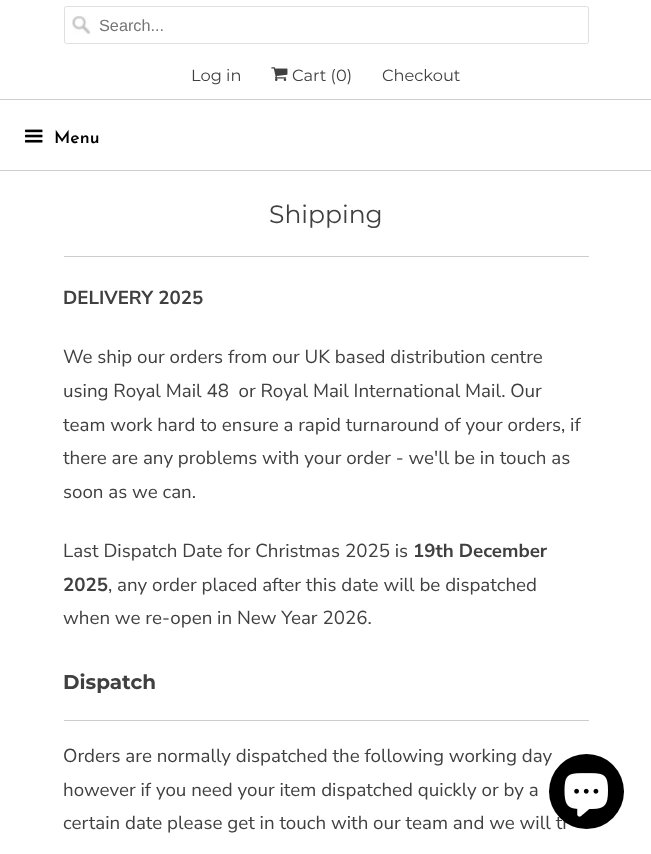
<svg xmlns="http://www.w3.org/2000/svg" xmlns:xlink="http://www.w3.org/1999/xlink" width="651" height="854" viewBox="0 0 651 854">
<style>
.cls-1{font:16.25px Liberation Sans;fill:#757575}
.cls-2{font:16.25px Montserrat;fill:#404040}
.cls-3{font:600 17.5px Josefin Sans;fill:#000000}
.cls-4{font:25px Montserrat;fill:#404040}
.cls-5{font:bold 18.75px Nunito Sans;fill:#404040}
.cls-6{font:18.75px Nunito Sans;fill:#404040}
.cls-7{font:bold 20px Montserrat;fill:#404040}
</style>
<rect width="100%" height="100%" fill="#ffffff"/>
<image xlink:href="image0.png" x="72" y="16" width="18" height="18"/>
<rect fill="none" stroke="#dfdfdf" x="64.5" y="6.5" width="524" height="37" rx="2"/>
<image xlink:href="image1.png" x="271" y="67" width="17" height="14"/>
<rect fill="#cdcdcd" x="0" y="99" width="651" height="1"/>
<rect fill="#cdcdcd" x="0" y="170" width="651" height="1"/>
<image xlink:href="image2.png" x="25" y="129" width="18" height="14"/>
<rect fill="#cdcdcd" x="64" y="256" width="525" height="1"/>
<rect fill="#cdcdcd" x="64" y="720" width="525" height="1"/>
<text class="cls-1" x="99" y="31">Search...</text>
<text class="cls-2" x="191" y="81">Log in</text>
<text class="cls-2" x="292" y="81">Cart (0)</text>
<text class="cls-2" x="382" y="81">Checkout</text>
<text class="cls-3" x="54" y="143">Menu</text>
<text class="cls-4" x="269" y="223">Shipping</text>
<text class="cls-5" x="63" y="304">DELIVERY 2025</text>
<text class="cls-6" xml:space="preserve"><tspan x="63" y="363">We ship our orders from our UK based distribution centre</tspan><tspan x="63" y="397">using Royal Mail 48  or Royal Mail International Mail. Our</tspan><tspan x="63" y="431">team work hard to ensure a rapid turnaround of your orders, if</tspan><tspan x="63" y="464">there are any problems with your order - we'll be in touch as</tspan><tspan x="63" y="498">soon as we can.</tspan></text>
<text class="cls-6" x="63" y="557">Last Dispatch Date for Christmas 2025 is</text>
<text class="cls-5" x="413" y="557">19th December</text>
<text class="cls-5" x="63" y="591">2025</text>
<text class="cls-6" x="108" y="591">, any order placed after this date will be dispatched</text>
<text class="cls-6" x="63" y="624">when we re-open in New Year 2026.</text>
<text class="cls-7" x="63" y="689">Dispatch</text>
<text class="cls-6"><tspan x="63" y="762">Orders are normally dispatched the following working day</tspan><tspan x="63" y="796">however if you need your item dispatched quickly or by a</tspan><tspan x="63" y="829">certain date please get in touch with our team and we will tr</tspan></text>
<circle fill="#000000" cx="586.5" cy="791.5" r="37.5"/>
<image xlink:href="image3.png" x="564" y="773" width="44" height="44"/>
</svg>
